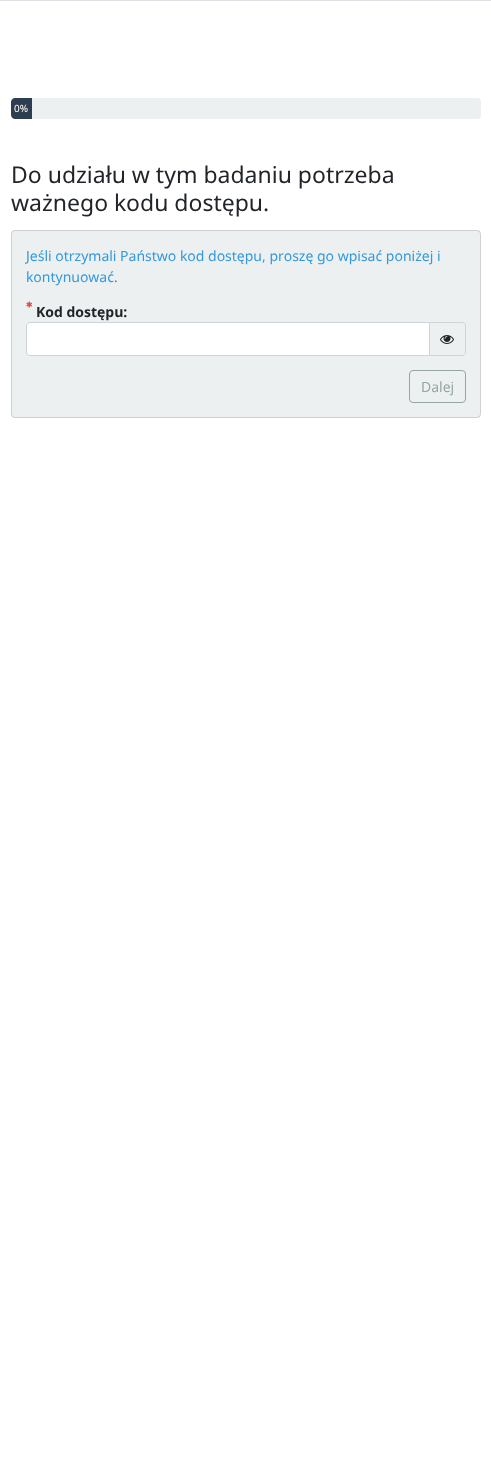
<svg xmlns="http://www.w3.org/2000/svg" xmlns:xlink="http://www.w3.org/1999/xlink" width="491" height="1471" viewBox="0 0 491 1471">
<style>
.cls-1{font:10px Noto Sans;fill:#ffffff}
.cls-2{font:23px Noto Sans;fill:#212529}
.cls-3{font:14px Noto Sans;fill:#3498db}
.cls-4{font:bold 14px Noto Sans;fill:#212529}
.cls-5{font:14px Noto Sans;fill:#95a5a6}
</style>
<rect width="100%" height="100%" fill="#ffffff"/>
<rect fill="#dee2e6" x="0" y="0" width="491" height="1"/>
<rect fill="#ecf0f1" x="11" y="98" width="470" height="21" rx="4"/>
<path fill="#2c3e50" d="M15 98H32V119H15C13 119 11 117 11 115V102C11 100 13 98 15 98Z"/>
<rect fill="#ecf0f1" x="11" y="230" width="470" height="188" rx="4"/>
<rect fill="none" stroke="#000000" stroke-opacity="0.12" x="11.5" y="230.5" width="469" height="187" rx="3.5"/>
<image xlink:href="image0.png" x="26" y="301" width="6" height="7"/>
<path fill="#ffffff" d="M29.5 323H429V355H29.5C28 355 27 354 27 352.5V325.5C27 324 28 323 29.5 323Z"/>
<path fill="none" stroke="#ced4da" d="M429.5 322.5H462C464 322.5 465.5 324 465.5 326V352C465.5 354 464 355.5 462 355.5H429.5Z"/>
<path fill="none" stroke="#ced4da" d="M30 322.5H429.5V355.5H30C28 355.5 26.5 354 26.5 352V326C26.5 324 28 322.5 30 322.5Z"/>
<image xlink:href="image1.png" x="440" y="335" width="14" height="9"/>
<rect fill="none" stroke="#95a5a6" x="409.5" y="370.5" width="56" height="32" rx="3.5"/>
<text class="cls-1" x="14" y="112">0%</text>
<text class="cls-2"><tspan x="11" y="183">Do udziału w tym badaniu potrzeba</tspan><tspan x="11" y="211">ważnego kodu dostępu.</tspan></text>
<text class="cls-3"><tspan x="26" y="261">Jeśli otrzymali Państwo kod dostępu, proszę go wpisać poniżej i</tspan><tspan x="26" y="282">kontynuować.</tspan></text>
<text class="cls-4" x="36" y="317">Kod dostępu:</text>
<text class="cls-5" x="421" y="392">Dalej</text>
</svg>
